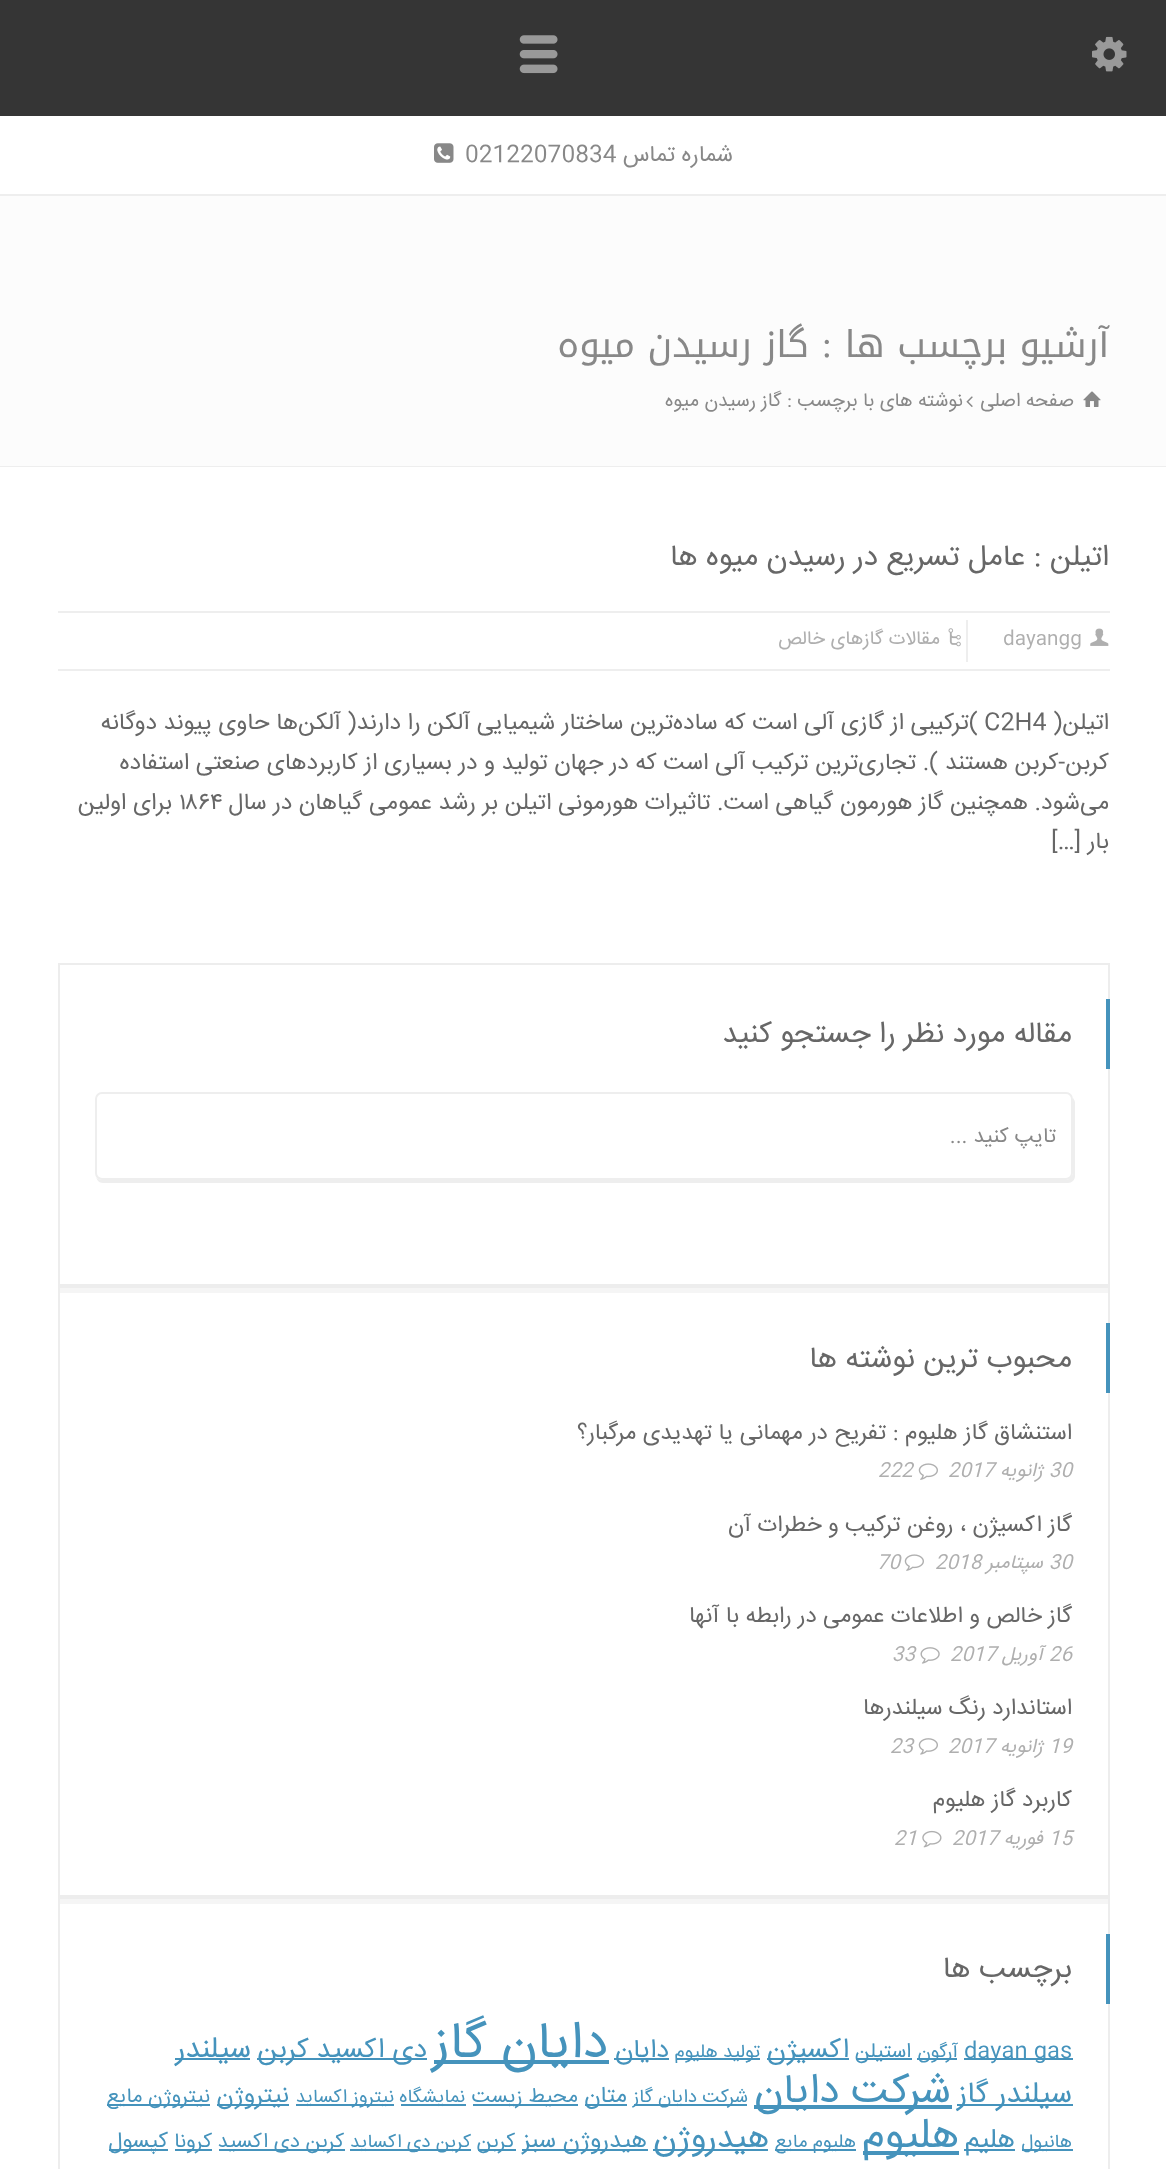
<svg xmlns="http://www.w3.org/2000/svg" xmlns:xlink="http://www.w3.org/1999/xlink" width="1166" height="2169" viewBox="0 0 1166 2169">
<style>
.cls-1{font:22.75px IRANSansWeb;direction:rtl;fill:#888888}
.cls-2{font:22.75px IRANSansWeb;fill:#888888}
.cls-3{font:36.75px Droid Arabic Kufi;direction:rtl;fill:#888888}
.cls-4{font:36.75px Liberation Serif;direction:rtl;fill:#888888}
.cls-5{font:19.25px IRANSansWeb;direction:rtl;fill:#888888}
.cls-6{font:29.6px IRANSansWeb;direction:rtl;fill:#676767}
.cls-7{font:19.25px IRANSansWeb;fill:#afafaf}
.cls-8{font:19.25px IRANSansWeb;direction:rtl;fill:#afafaf}
.cls-9{font:23.35px IRANSansWeb;direction:rtl;fill:#676767}
.cls-10{font:23.35px IRANSansWeb;fill:#676767}
.cls-11{font:29.75px IRANSansWeb;direction:rtl;fill:#676767}
.cls-12{font:21px IRANSansWeb;direction:rtl;fill:#888888}
.cls-13{font:22.75px IRANSansWeb;direction:rtl;fill:#676767}
.cls-14{font:italic 19.25px IRANSansWeb;fill:#afafaf}
.cls-15{font:italic 19.25px IRANSansWeb;direction:rtl;fill:#afafaf}
.cls-16{font:22px IRANSansWeb;fill:#4593bc}
.cls-17{font:18.75px IRANSansWeb;direction:rtl;fill:#4593bc}
.cls-18{font:20.5px IRANSansWeb;direction:rtl;fill:#4593bc}
.cls-19{font:27px IRANSansWeb;direction:rtl;fill:#4593bc}
.cls-20{font:26px IRANSansWeb;direction:rtl;fill:#4593bc}
.cls-21{font:51.5px IRANSansWeb;direction:rtl;fill:#4593bc}
.cls-22{font:27.5px IRANSansWeb;direction:rtl;fill:#4593bc}
.cls-23{font:29.5px IRANSansWeb;direction:rtl;fill:#4593bc}
.cls-24{font:41px IRANSansWeb;direction:rtl;fill:#4593bc}
.cls-25{font:23px IRANSansWeb;direction:rtl;fill:#4593bc}
.cls-26{font:24px IRANSansWeb;direction:rtl;fill:#4593bc}
.cls-27{font:42px IRANSansWeb;direction:rtl;fill:#4593bc}
.cls-28{font:33px IRANSansWeb;direction:rtl;fill:#4593bc}
.cls-29{font:22px IRANSansWeb;direction:rtl;fill:#4593bc}
</style>
<rect width="100%" height="100%" fill="#ffffff"/>
<rect fill="#353535" x="0" y="0" width="1166" height="116"/>
<image xlink:href="image0.png" x="1092" y="36" width="35" height="36"/>
<image xlink:href="image1.png" x="519" y="35" width="39" height="39"/>
<image xlink:href="image2.png" x="434" y="143" width="20" height="20"/>
<rect fill="#fcfcfc" x="0" y="196" width="1166" height="270"/>
<rect fill="#eeeeee" x="0" y="194" width="1166" height="2"/>
<rect fill="#eeeeee" x="0" y="466" width="1166" height="1"/>
<image xlink:href="image3.png" x="1083" y="391" width="18" height="16"/>
<image xlink:href="image4.png" x="966" y="396" width="7" height="11"/>
<rect fill="#eeeeee" x="58" y="669" width="1052" height="2"/>
<rect fill="#eeeeee" x="58" y="611" width="1052" height="2"/>
<rect fill="#eeeeee" x="966" y="620" width="2" height="42"/>
<image xlink:href="image5.png" x="1090" y="628" width="19" height="18"/>
<image xlink:href="image6.png" x="948" y="628" width="13" height="19"/>
<path fill="#f5f5f5" d="M58 1286V1293H1110V970V1286Z"/>
<rect fill="none" stroke="#ededed" stroke-width="2" x="59" y="964" width="1050" height="321"/>
<rect fill="#4593bc" x="1106" y="999" width="4" height="70"/>
<path fill="#eeeeee" d="M96 1177C97 1180 99 1183 103 1183H1068C1072 1183 1075 1180 1075 1176V1103C1075 1101 1074 1099 1073 1098V1172C1073 1176 1070 1180 1066 1180H102C99 1180 97 1178 96 1177Z"/>
<rect fill="#ffffff" stroke="#eeeeee" stroke-width="2" x="96" y="1093" width="976" height="86" rx="6"/>
<path fill="#f5f5f5" d="M58 1897V1904H1110V1293V1897Z"/>
<rect fill="none" stroke="#ededed" stroke-width="2" x="59" y="1287" width="1050" height="609"/>
<rect fill="#4593bc" x="1106" y="1323" width="4" height="70"/>
<image xlink:href="image7.png" x="918" y="1463" width="20" height="17"/>
<image xlink:href="image7.png" x="904" y="1554" width="20" height="17"/>
<image xlink:href="image8.png" x="920" y="1647" width="20" height="17"/>
<image xlink:href="image9.png" x="918" y="1738" width="20" height="17"/>
<image xlink:href="image10.png" x="922" y="1830" width="20" height="18"/>
<rect fill="none" stroke="#ededed" stroke-width="2" x="59" y="1898" width="1050" height="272"/>
<rect fill="#4593bc" x="1106" y="1934" width="4" height="70"/>
<rect fill="#4593bc" x="964" y="2058" width="109" height="2"/>
<rect fill="#4593bc" x="917" y="2058" width="40" height="2"/>
<rect fill="#4593bc" x="856" y="2058" width="56" height="2"/>
<rect fill="#4593bc" x="767" y="2058" width="82" height="2"/>
<rect fill="#4593bc" x="676" y="2058" width="84" height="2"/>
<rect fill="#4593bc" x="614" y="2058" width="55" height="2"/>
<rect fill="#4593bc" x="434" y="2060" width="175" height="4"/>
<rect fill="#4593bc" x="257" y="2058" width="170" height="2"/>
<rect fill="#4593bc" x="175" y="2058" width="75" height="2"/>
<rect fill="#4593bc" x="957" y="2104" width="116" height="2"/>
<rect fill="#4593bc" x="754" y="2105" width="198" height="4"/>
<rect fill="#4593bc" x="634" y="2104" width="113" height="2"/>
<rect fill="#4593bc" x="585" y="2104" width="42" height="2"/>
<rect fill="#4593bc" x="473" y="2104" width="105" height="2"/>
<rect fill="#4593bc" x="401" y="2104" width="65" height="2"/>
<rect fill="#4593bc" x="296" y="2104" width="98" height="2"/>
<rect fill="#4593bc" x="217" y="2104" width="72" height="2"/>
<rect fill="#4593bc" x="107" y="2104" width="103" height="2"/>
<rect fill="#4593bc" x="1022" y="2149" width="51" height="2"/>
<rect fill="#4593bc" x="964" y="2149" width="51" height="2"/>
<rect fill="#4593bc" x="863" y="2151" width="96" height="4"/>
<rect fill="#4593bc" x="775" y="2149" width="81" height="2"/>
<rect fill="#4593bc" x="653" y="2149" width="115" height="2"/>
<rect fill="#4593bc" x="522" y="2149" width="126" height="2"/>
<rect fill="#4593bc" x="478" y="2149" width="38" height="2"/>
<rect fill="#4593bc" x="350" y="2149" width="121" height="2"/>
<rect fill="#4593bc" x="219" y="2149" width="126" height="2"/>
<rect fill="#4593bc" x="175" y="2149" width="37" height="2"/>
<rect fill="#4593bc" x="109" y="2149" width="59" height="2"/>
<text class="cls-1" x="733" y="161">شماره تماس</text>
<text class="cls-2" x="465" y="161">02122070834</text>
<text class="cls-3" x="1109" y="357">آرشیو برچسب ها</text>
<text class="cls-4" x="832" y="357">:</text>
<text class="cls-3" x="809" y="357">گاز رسیدن میوه</text>
<text class="cls-5" x="1074" y="406">صفحه اصلی</text>
<text class="cls-5" x="963" y="406">نوشته های با برچسب : گاز رسیدن میوه</text>
<text class="cls-6" x="1109" y="565">اتیلن : عامل تسریع در رسیدن میوه ها</text>
<text class="cls-7" x="1003" y="644">dayangg</text>
<text class="cls-8" x="940" y="644">مقالات گازهای خالص</text>
<text class="cls-9" x="1109" y="729">اتیلن(</text>
<text class="cls-10" x="984" y="729">C2H4</text>
<text class="cls-9" x="978" y="729">)ترکیبی از گازی آلی است که ساده‌ترین ساختار شیمیایی آلکن را دارند( آلکن‌ها حاوی پیوند دوگانه</text>
<text class="cls-9"><tspan x="1109" y="769">کربن-کربن هستند ). تجاری‌ترین ترکیب آلی است که در جهان تولید و در بسیاری از کاربردهای صنعتی استفاده</tspan><tspan x="1109" y="809">می‌شود. همچنین گاز هورمون گیاهی است. تاثیرات هورمونی اتیلن بر رشد عمومی گیاهان در سال</tspan></text>
<text class="cls-10" x="179" y="809">۱۸۶۴</text>
<text class="cls-9" x="172" y="809">برای اولین</text>
<text class="cls-9" x="1109" y="848">بار […]</text>
<text class="cls-11" x="1072" y="1042">مقاله مورد نظر را جستجو کنید</text>
<text class="cls-12" x="1056" y="1142">تایپ کنید ...</text>
<text class="cls-11" x="1072" y="1367">محبوب ترین نوشته ها</text>
<text class="cls-13" x="1072" y="1439">استنشاق گاز هلیوم : تفریح در مهمانی یا تهدیدی مرگبار؟</text>
<text class="cls-14" x="1049" y="1476">30</text>
<text class="cls-15" x="1043" y="1476">ژانویه</text>
<text class="cls-14" x="948" y="1476">2017</text>
<text class="cls-14" x="878" y="1476">222</text>
<text class="cls-13" x="1072" y="1531">گاز اکسیژن ، روغن ترکیب و خطرات آن</text>
<text class="cls-14" x="1049" y="1568">30</text>
<text class="cls-15" x="1043" y="1568">سپتامبر</text>
<text class="cls-14" x="935" y="1568">2018</text>
<text class="cls-14" x="877" y="1568">70</text>
<text class="cls-13" x="1072" y="1622">گاز خالص و اطلاعات عمومی در رابطه با آنها</text>
<text class="cls-14" x="1049" y="1660">26</text>
<text class="cls-15" x="1043" y="1660">آوریل</text>
<text class="cls-14" x="950" y="1660">2017</text>
<text class="cls-14" x="892" y="1660">33</text>
<text class="cls-13" x="1072" y="1714">استاندارد رنگ سیلندرها</text>
<text class="cls-14" x="1049" y="1752">19</text>
<text class="cls-15" x="1043" y="1752">ژانویه</text>
<text class="cls-14" x="948" y="1752">2017</text>
<text class="cls-14" x="890" y="1752">23</text>
<text class="cls-13" x="1072" y="1806">کاربرد گاز هلیوم</text>
<text class="cls-14" x="1049" y="1844">15</text>
<text class="cls-15" x="1043" y="1844">فوریه</text>
<text class="cls-14" x="952" y="1844">2017</text>
<text class="cls-14" x="894" y="1844">21</text>
<text class="cls-11" x="1072" y="1977">برچسب ها</text>
<text class="cls-16" x="964" y="2057">dayan gas</text>
<text class="cls-17" x="958" y="2057">آرگون</text>
<text class="cls-18" x="911" y="2057">استیلن</text>
<text class="cls-19" x="849" y="2057">اکسیژن</text>
<text class="cls-17" x="760" y="2057">تولید هلیوم</text>
<text class="cls-20" x="669" y="2057">دایان</text>
<text class="cls-21" x="608" y="2057">دایان گاز</text>
<text class="cls-22" x="427" y="2057">دی اکسید کربن</text>
<text class="cls-23" x="251" y="2057">سیلندر</text>
<text class="cls-23" x="1072" y="2102">سیلندر گاز</text>
<text class="cls-24" x="951" y="2102">شرکت دایان</text>
<text class="cls-17" x="748" y="2102">شرکت دایان گاز</text>
<text class="cls-25" x="627" y="2102">متان</text>
<text class="cls-18" x="578" y="2102">محیط زیست</text>
<text class="cls-17" x="465" y="2102">نمایشگاه</text>
<text class="cls-17" x="394" y="2102">نیتروز اکساید</text>
<text class="cls-26" x="289" y="2102">نیتروژن</text>
<text class="cls-18" x="210" y="2102">نیتروژن مایع</text>
<text class="cls-17" x="1072" y="2147">هانیول</text>
<text class="cls-19" x="1015" y="2147">هلیم</text>
<text class="cls-27" x="959" y="2147">هلیوم</text>
<text class="cls-17" x="856" y="2147">هلیوم مایع</text>
<text class="cls-28" x="769" y="2147">هیدروژن</text>
<text class="cls-26" x="647" y="2147">هیدروژن سبز</text>
<text class="cls-18" x="515" y="2147">کربن</text>
<text class="cls-17" x="471" y="2147">کربن دی اکساید</text>
<text class="cls-18" x="344" y="2147">کربن دی اکسید</text>
<text class="cls-18" x="212" y="2147">کرونا</text>
<text class="cls-29" x="168" y="2147">کپسول</text>
</svg>
